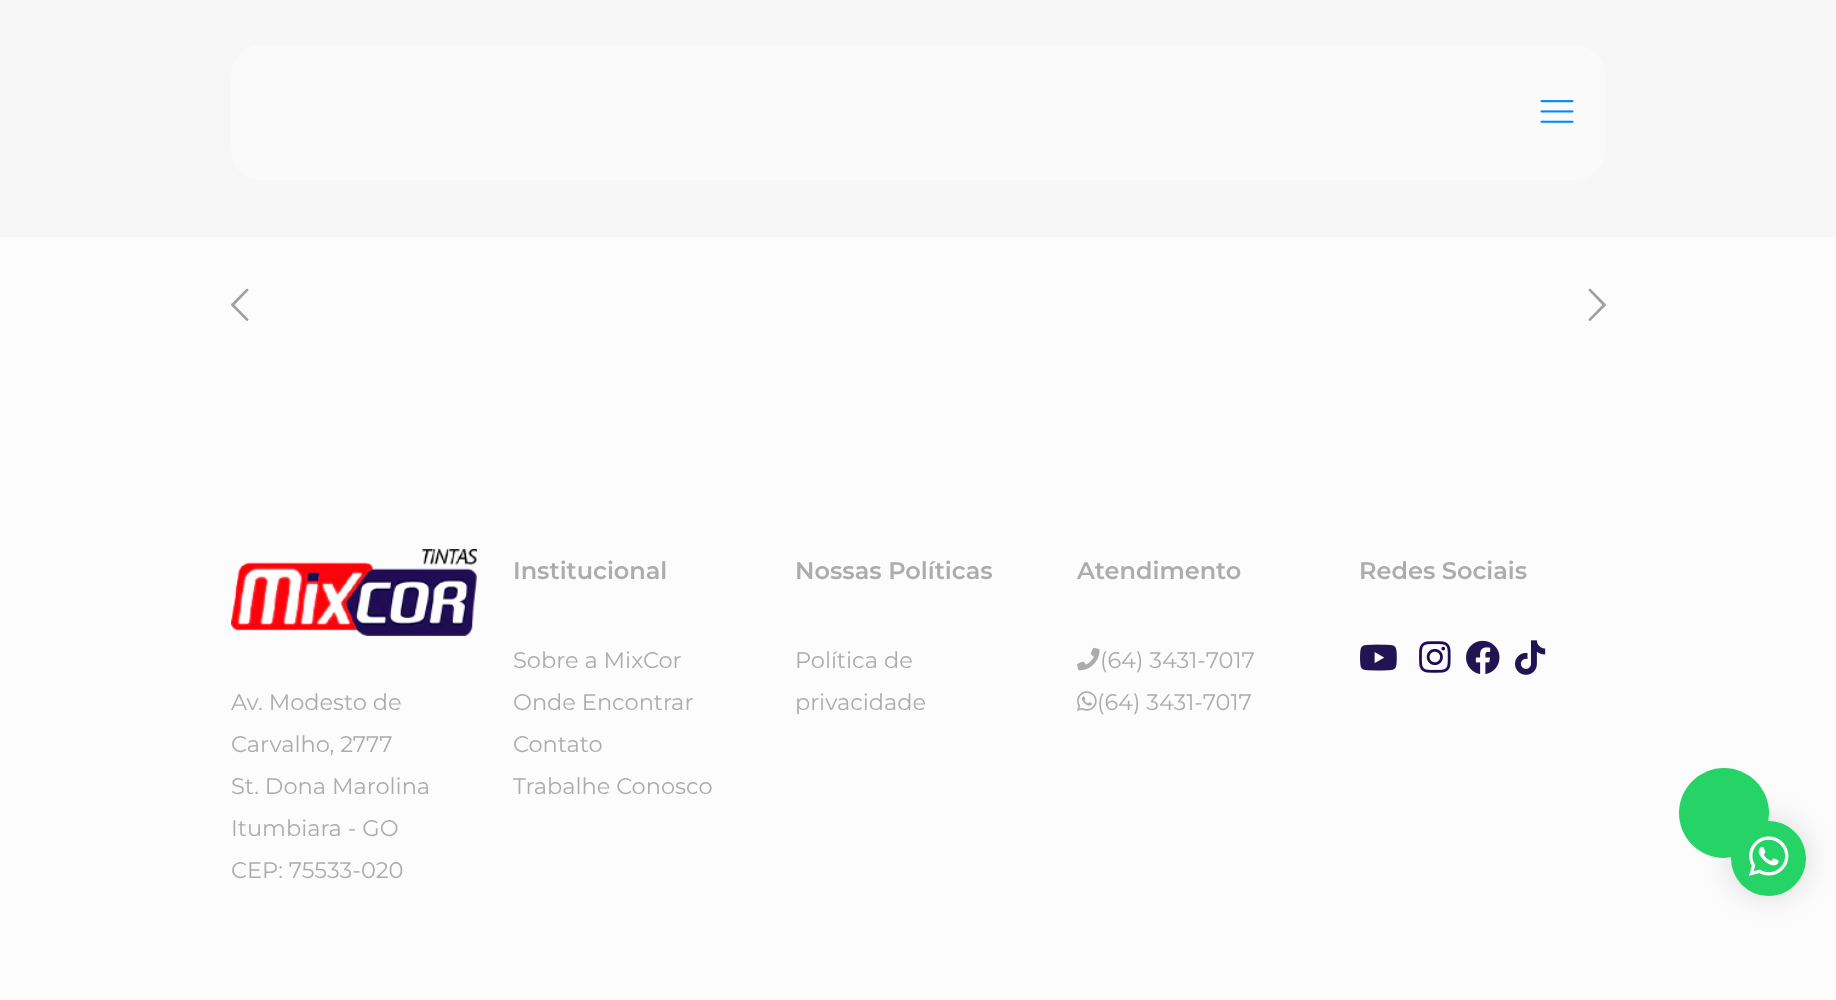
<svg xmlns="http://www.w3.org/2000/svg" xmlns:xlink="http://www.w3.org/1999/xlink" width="1836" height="1000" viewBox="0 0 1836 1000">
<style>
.cls-1{font:600 24px Montserrat;fill:#acacac}
.cls-2{font:22.5px Montserrat;fill:#acacac}
</style>
<rect width="100%" height="100%" fill="#fcfcfc"/>
<rect fill="#f7f7f7" x="0" y="0" width="1836" height="237"/>
<rect fill="#fafafa" x="231" y="45" width="1374" height="135" rx="30"/>
<image xlink:href="image0.png" x="1540" y="100" width="34" height="23"/>
<image xlink:href="image1.png" x="231" y="288" width="18" height="33"/>
<image xlink:href="image2.png" x="1588" y="288" width="18" height="33"/>
<image xlink:href="image3.png" x="1077" y="647" width="23" height="24"/>
<image xlink:href="image4.png" x="1077" y="691" width="20" height="20"/>
<image xlink:href="image5.png" x="1360" y="644" width="37" height="27"/>
<image xlink:href="image6.png" x="1419" y="641" width="32" height="32"/>
<image xlink:href="image7.png" x="1466" y="640" width="34" height="34"/>
<image xlink:href="image8.png" x="1515" y="640" width="31" height="35"/>
<image xlink:href="image9.png" x="231" y="549" width="246" height="87"/>
<rect fill="#000000" fill-opacity="0.15" filter="blur(15px)" x="1731" y="821" width="75" height="75" rx="37.5"/>
<circle fill="#25d366" cx="1768.5" cy="858.5" r="37.5"/>
<circle fill="#25d366" cx="1724" cy="813" r="45"/>
<image xlink:href="image10.png" x="1749" y="836" width="40" height="40"/>
<text class="cls-1" x="513" y="579">Institucional</text>
<text class="cls-2"><tspan x="513" y="668">Sobre a MixCor</tspan><tspan x="513" y="710">Onde Encontrar</tspan><tspan x="513" y="752">Contato</tspan><tspan x="513" y="794">Trabalhe Conosco</tspan></text>
<text class="cls-1" x="795" y="579">Nossas Políticas</text>
<text class="cls-2"><tspan x="795" y="668">Política de</tspan><tspan x="795" y="710">privacidade</tspan></text>
<text class="cls-1" x="1077" y="579">Atendimento</text>
<text class="cls-2" x="1100" y="668">(64) 3431-7017</text>
<text class="cls-2" x="1097" y="710">(64) 3431-7017</text>
<text class="cls-1" x="1359" y="579">Redes Sociais</text>
<text class="cls-2"><tspan x="231" y="710">Av. Modesto de</tspan><tspan x="231" y="752">Carvalho, 2777</tspan><tspan x="231" y="794">St. Dona Marolina</tspan><tspan x="231" y="836">Itumbiara - GO</tspan><tspan x="231" y="878">CEP: 75533-020</tspan></text>
</svg>
